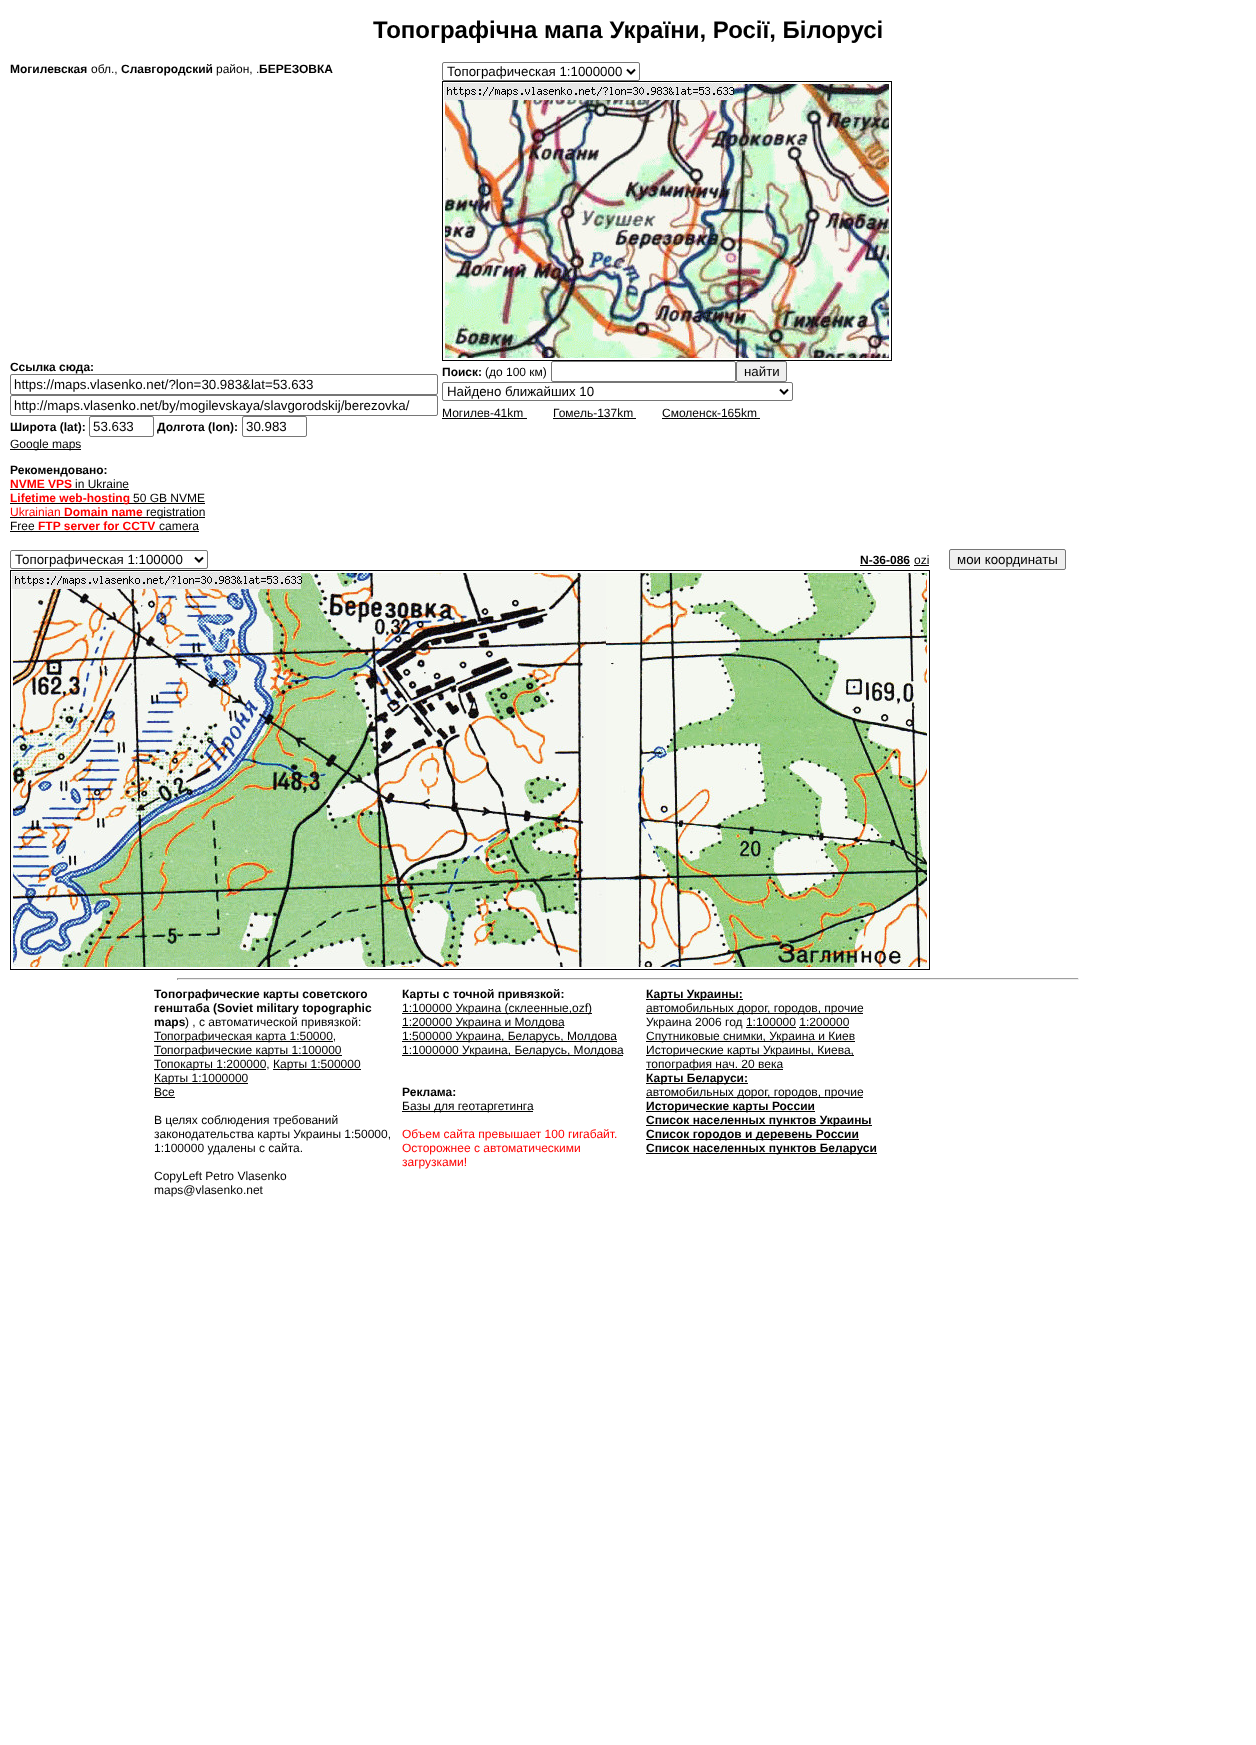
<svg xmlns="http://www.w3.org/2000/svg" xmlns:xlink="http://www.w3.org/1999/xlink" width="1256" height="1745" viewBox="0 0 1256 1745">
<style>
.cls-1{font:bold 24px Liberation Sans;fill:#000000}
.cls-2{font:bold 12px Liberation Sans;fill:#000000}
.cls-3{font:12px Liberation Sans;fill:#000000}
.cls-4{font:13.3px Liberation Sans;fill:#000000}
.cls-5{font:bold 12px Liberation Sans;fill:#ff0000}
.cls-6{font:12px Liberation Sans;fill:#ff0000}
</style>
<rect width="100%" height="100%" fill="#ffffff"/>
<rect fill="none" stroke="#767676" x="10.5" y="374.5" width="427" height="20" rx="1.5"/>
<rect fill="none" stroke="#767676" x="10.5" y="395.5" width="427" height="20" rx="1.5"/>
<rect fill="none" stroke="#767676" x="89.5" y="416.5" width="64" height="20" rx="1.5"/>
<rect fill="none" stroke="#767676" x="242.5" y="416.5" width="64" height="20" rx="1.5"/>
<rect fill="#000000" x="10" y="449" width="71" height="1"/>
<rect fill="#000000" x="10" y="489" width="119" height="1"/>
<rect fill="#000000" x="10" y="503" width="195" height="1"/>
<rect fill="#000000" x="10" y="517" width="195" height="1"/>
<rect fill="#000000" x="10" y="531" width="189" height="1"/>
<rect fill="none" stroke="#767676" x="442.5" y="62.5" width="197" height="18" rx="1.5"/>
<path fill="none" stroke="#000000" stroke-width="2" d="M627 69.5L631 73.5L635 69.5"/>
<image xlink:href="image0.png" x="442" y="81" width="450" height="280"/>
<rect fill="none" stroke="#767676" x="551.5" y="361.5" width="184" height="20" rx="1.5"/>
<rect fill="#efefef" stroke="#767676" x="736.5" y="361.5" width="50" height="20" rx="1.5"/>
<rect fill="none" stroke="#767676" x="442.5" y="382.5" width="350" height="18" rx="1.5"/>
<path fill="none" stroke="#000000" stroke-width="2" d="M780 389.5L784 393.5L788 389.5"/>
<rect fill="#000000" x="442" y="418" width="85" height="1"/>
<rect fill="#000000" x="553" y="418" width="83" height="1"/>
<rect fill="#000000" x="662" y="418" width="98" height="1"/>
<rect fill="none" stroke="#767676" x="10.5" y="550.5" width="197" height="18" rx="1.5"/>
<path fill="none" stroke="#000000" stroke-width="2" d="M195 557.5L199 561.5L203 557.5"/>
<rect fill="#000000" x="860" y="565" width="50" height="1"/>
<rect fill="#000000" x="914" y="565" width="15" height="1"/>
<rect fill="#efefef" stroke="#767676" x="949.5" y="549.5" width="116" height="20" rx="1.5"/>
<image xlink:href="image1.png" x="10" y="570" width="920" height="400"/>
<rect fill="#9f9f9f" x="177" y="978" width="902" height="1"/>
<rect fill="#eeeeee" x="1078" y="978" width="1" height="2"/>
<rect fill="#eeeeee" x="177" y="979" width="902" height="1"/>
<rect fill="#9f9f9f" x="177" y="978" width="1" height="2"/>
<rect fill="#000000" x="154" y="1041" width="179" height="1"/>
<rect fill="#000000" x="154" y="1055" width="188" height="1"/>
<rect fill="#000000" x="154" y="1069" width="112" height="1"/>
<rect fill="#000000" x="273" y="1069" width="88" height="1"/>
<rect fill="#000000" x="154" y="1083" width="94" height="1"/>
<rect fill="#000000" x="154" y="1097" width="21" height="1"/>
<rect fill="#000000" x="402" y="1013" width="190" height="1"/>
<rect fill="#000000" x="402" y="1027" width="162" height="1"/>
<rect fill="#000000" x="402" y="1041" width="215" height="1"/>
<rect fill="#000000" x="402" y="1055" width="221" height="1"/>
<rect fill="#000000" x="402" y="1111" width="131" height="1"/>
<rect fill="#000000" x="646" y="999" width="97" height="1"/>
<rect fill="#000000" x="646" y="1013" width="217" height="1"/>
<rect fill="#000000" x="746" y="1027" width="50" height="1"/>
<rect fill="#000000" x="799" y="1027" width="50" height="1"/>
<rect fill="#000000" x="646" y="1041" width="209" height="1"/>
<rect fill="#000000" x="646" y="1055" width="208" height="1"/>
<rect fill="#000000" x="646" y="1069" width="137" height="1"/>
<rect fill="#000000" x="646" y="1083" width="102" height="1"/>
<rect fill="#000000" x="646" y="1097" width="217" height="1"/>
<rect fill="#000000" x="646" y="1111" width="169" height="1"/>
<rect fill="#000000" x="646" y="1125" width="226" height="1"/>
<rect fill="#000000" x="646" y="1139" width="213" height="1"/>
<rect fill="#000000" x="646" y="1153" width="231" height="1"/>
<text class="cls-1" x="373" y="38">Топографічна мапа України, Росії, Білорусі</text>
<text class="cls-2" x="10" y="73">Могилевская</text>
<text class="cls-3" x="91" y="73">обл.,</text>
<text class="cls-2" x="121" y="73">Славгородский</text>
<text class="cls-3" x="216" y="73">район, .</text>
<text class="cls-2" x="259" y="73">БЕРЕЗОВКА</text>
<text class="cls-2" x="10" y="371">Ссылка сюда:</text>
<text class="cls-4"><tspan x="14" y="389">https://maps.vlasenko.net/?lon=30.983&amp;lat=53.633</tspan><tspan x="14" y="410">http://maps.vlasenko.net/by/mogilevskaya/slavgorodskij/berezovka/</tspan></text>
<text class="cls-2" x="10" y="431">Широта (lat):</text>
<text class="cls-4" x="93" y="431">53.633</text>
<text class="cls-2" x="157" y="431">Долгота (lon):</text>
<text class="cls-4" x="246" y="431">30.983</text>
<text class="cls-3" x="10" y="448">Google maps</text>
<text class="cls-2" x="10" y="474">Рекомендовано:</text>
<text class="cls-5" x="10" y="488">NVME VPS</text>
<text class="cls-3" x="75" y="488">in Ukraine</text>
<text class="cls-5" x="10" y="502">Lifetime web-hosting</text>
<text class="cls-3" x="133" y="502">50 GB NVME</text>
<text class="cls-6" x="10" y="516">Ukrainian</text>
<text class="cls-5" x="64" y="516">Domain name</text>
<text class="cls-3" x="146" y="516">registration</text>
<text class="cls-3" x="10" y="530">Free</text>
<text class="cls-5" x="38" y="530">FTP server for CCTV</text>
<text class="cls-3" x="159" y="530">camera</text>
<text class="cls-4" x="447" y="76">Топографическая 1:1000000</text>
<text class="cls-2" x="442" y="376">Поиск:</text>
<text class="cls-3" x="485" y="376">(до 100 км)</text>
<text class="cls-4" x="744" y="376">найти</text>
<text class="cls-4" x="447" y="396">Найдено ближайших 10</text>
<text class="cls-3" x="442" y="417">Могилев-41km</text>
<text class="cls-3" x="553" y="417">Гомель-137km</text>
<text class="cls-3" x="662" y="417">Смоленск-165km</text>
<text class="cls-4" x="15" y="564">Топографическая 1:100000</text>
<text class="cls-2" x="860" y="564">N-36-086</text>
<text class="cls-3" x="914" y="564">ozi</text>
<text class="cls-4" x="957" y="564">мои координаты</text>
<text class="cls-2"><tspan x="154" y="998">Топографические карты советского</tspan><tspan x="154" y="1012">генштаба (Soviet military topographic</tspan><tspan x="154" y="1026">maps</tspan></text>
<text class="cls-3" x="185" y="1026">) , с автоматической привязкой:</text>
<text class="cls-3"><tspan x="154" y="1040">Топографическая карта 1:50000,</tspan><tspan x="154" y="1054">Топографические карты 1:100000</tspan><tspan x="154" y="1068">Топокарты 1:200000,</tspan></text>
<text class="cls-3" x="273" y="1068">Карты 1:500000</text>
<text class="cls-3"><tspan x="154" y="1082">Карты 1:1000000</tspan><tspan x="154" y="1096">Все</tspan></text>
<text class="cls-3"><tspan x="154" y="1124">В целях соблюдения требований</tspan><tspan x="154" y="1138">законодательства карты Украины 1:50000,</tspan><tspan x="154" y="1152">1:100000 удалены с сайта.</tspan></text>
<text class="cls-3"><tspan x="154" y="1180">CopyLeft Petro Vlasenko</tspan><tspan x="154" y="1194">maps@vlasenko.net</tspan></text>
<text class="cls-2" x="402" y="998">Карты с точной привязкой:</text>
<text class="cls-3"><tspan x="402" y="1012">1:100000 Украина (cклеенные,ozf)</tspan><tspan x="402" y="1026">1:200000 Украина и Молдова</tspan><tspan x="402" y="1040">1:500000 Украина, Беларусь, Молдова</tspan><tspan x="402" y="1054">1:1000000 Украина, Беларусь, Молдова</tspan></text>
<text class="cls-2" x="402" y="1096">Реклама:</text>
<text class="cls-3" x="402" y="1110">Базы для геотаргетинга</text>
<text class="cls-6"><tspan x="402" y="1138">Объем сайта превышает 100 гигабайт.</tspan><tspan x="402" y="1152">Осторожнее с автоматическими</tspan><tspan x="402" y="1166">загрузками!</tspan></text>
<text class="cls-2" x="646" y="998">Карты Украины:</text>
<text class="cls-3"><tspan x="646" y="1012">автомобильных дорог, городов, прочие</tspan><tspan x="646" y="1026">Украина 2006 год 1:100000 1:200000</tspan><tspan x="646" y="1040">Спутниковые снимки, Украина и Киев</tspan><tspan x="646" y="1054">Исторические карты Украины, Киева,</tspan><tspan x="646" y="1068">топография нач. 20 века</tspan></text>
<text class="cls-2" x="646" y="1082">Карты Беларуси:</text>
<text class="cls-3" x="646" y="1096">автомобильных дорог, городов, прочие</text>
<text class="cls-2"><tspan x="646" y="1110">Исторические карты России</tspan><tspan x="646" y="1124">Список населенных пунктов Украины</tspan><tspan x="646" y="1138">Список городов и деревень России</tspan><tspan x="646" y="1152">Список населенных пунктов Беларуси</tspan></text>
</svg>
